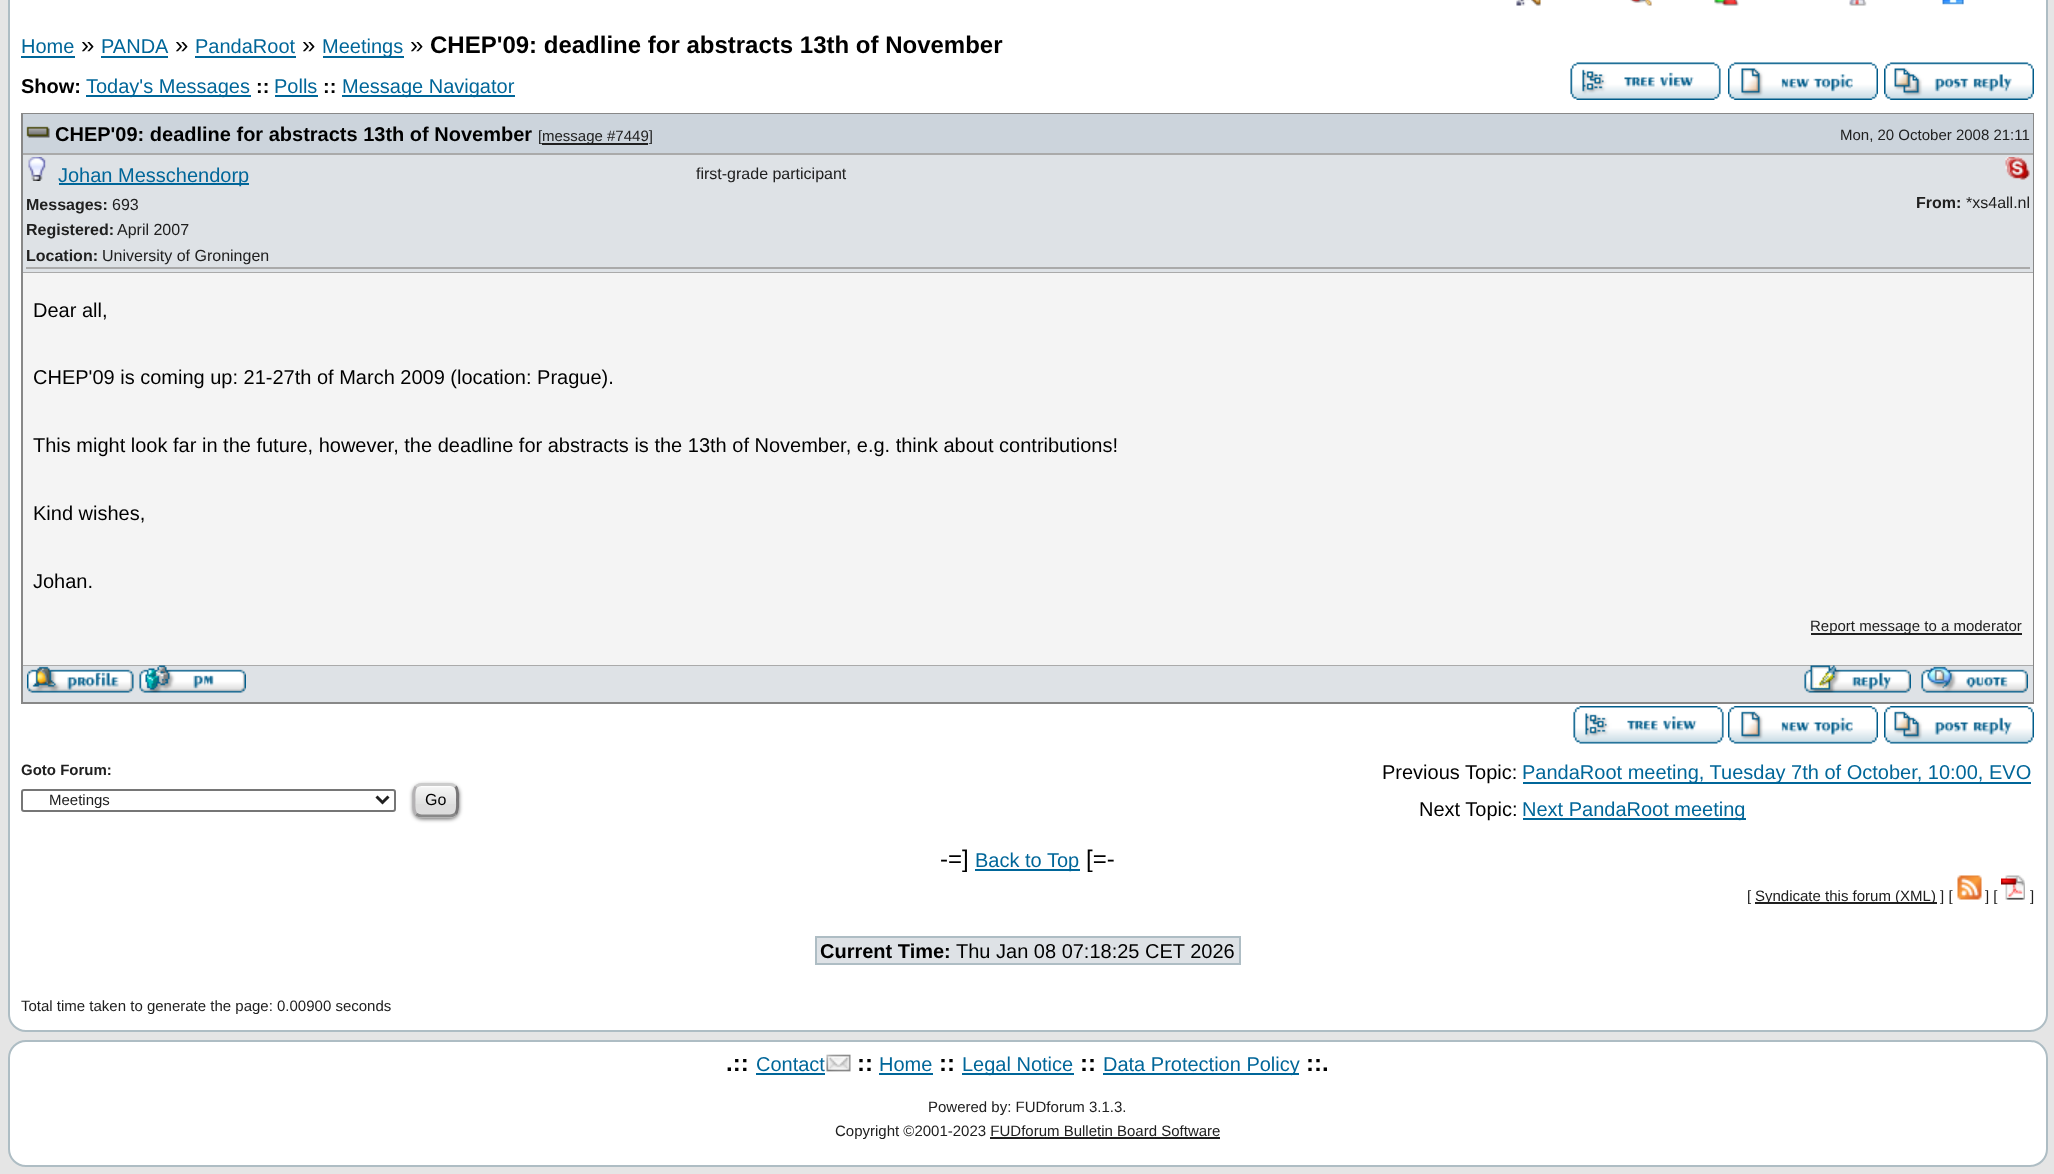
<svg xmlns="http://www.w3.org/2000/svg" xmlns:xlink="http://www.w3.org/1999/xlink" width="2054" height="1174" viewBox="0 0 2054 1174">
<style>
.cls-1{font:20px Liberation Sans;fill:#006699}
.cls-2{font:24px Liberation Sans;fill:#000000}
.cls-3{font:bold 24px Liberation Sans;fill:#000000}
.cls-4{font:bold 20px Liberation Sans;fill:#000000}
.cls-5{font:15px Liberation Sans;fill:#202020}
.cls-6{font:bold 16px Liberation Sans;fill:#202020}
.cls-7{font:16px Liberation Sans;fill:#202020}
.cls-8{font:20px Liberation Sans;fill:#000000}
.cls-9{font:bold 15px Liberation Sans;fill:#202020}
.cls-10{font:16px Liberation Sans;fill:#000000}
</style>
<rect width="100%" height="100%" fill="#e5e5e5"/>
<rect fill="#ffffff" stroke="#aebdc4" stroke-width="2" x="9" y="-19" width="2038" height="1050" rx="17"/>
<image xlink:href="image0.png" x="1516" y="0" width="25" height="6"/>
<image xlink:href="image1.png" x="1630" y="0" width="22" height="6"/>
<image xlink:href="image2.png" x="1714" y="0" width="25" height="6"/>
<image xlink:href="image3.png" x="1849" y="0" width="18" height="6"/>
<image xlink:href="image4.png" x="1942" y="0" width="22" height="5"/>
<rect fill="#006699" x="21" y="56" width="54" height="2"/>
<rect fill="#006699" x="101" y="56" width="67" height="2"/>
<rect fill="#006699" x="195" y="56" width="101" height="2"/>
<rect fill="#006699" x="323" y="56" width="81" height="2"/>
<rect fill="#006699" x="86" y="95" width="165" height="2"/>
<rect fill="#006699" x="275" y="95" width="43" height="2"/>
<rect fill="#006699" x="342" y="95" width="173" height="2"/>
<image xlink:href="image5.png" x="1570" y="62" width="151" height="38"/>
<image xlink:href="image6.png" x="1728" y="62" width="150" height="38"/>
<image xlink:href="image7.png" x="1884" y="62" width="150" height="38"/>
<rect fill="none" stroke="#888888" stroke-width="2" x="22" y="114" width="2011" height="589"/>
<rect fill="#ccd4dc" x="23" y="114" width="2010" height="39"/>
<rect fill="#aaaaaa" x="23" y="153" width="2010" height="2"/>
<image xlink:href="image8.png" x="26" y="126" width="24" height="12"/>
<rect fill="#202020" x="542" y="143" width="106" height="2"/>
<rect fill="#dee2e6" x="23" y="155" width="2010" height="117"/>
<rect fill="#aaaaaa" x="23" y="272" width="2010" height="1"/>
<rect fill="#aaaaaa" x="26" y="267" width="2004" height="2"/>
<image xlink:href="image9.png" x="28" y="157" width="18" height="24"/>
<rect fill="#006699" x="59" y="183" width="190" height="2"/>
<image xlink:href="image10.png" x="2005" y="157" width="25" height="23"/>
<rect fill="#f4f4f4" x="23" y="273" width="2010" height="392"/>
<rect fill="#aaaaaa" x="23" y="665" width="2010" height="1"/>
<rect fill="#202020" x="1811" y="633" width="211" height="2"/>
<rect fill="#dee2e6" x="23" y="666" width="2010" height="36"/>
<image xlink:href="image11.png" x="27" y="666" width="107" height="27"/>
<image xlink:href="image12.png" x="139" y="665" width="107" height="28"/>
<image xlink:href="image13.png" x="1804" y="665" width="107" height="28"/>
<image xlink:href="image14.png" x="1921" y="666" width="107" height="27"/>
<image xlink:href="image15.png" x="1573" y="706" width="151" height="38"/>
<image xlink:href="image16.png" x="1728" y="706" width="150" height="38"/>
<image xlink:href="image17.png" x="1884" y="706" width="150" height="38"/>
<rect fill="#006699" x="1523" y="782" width="508" height="2"/>
<rect fill="#006699" x="1523" y="818" width="223" height="2"/>
<rect fill="none" stroke="#767676" stroke-width="2" x="22" y="790" width="373" height="21" rx="2"/>
<path fill="none" stroke="#202020" stroke-width="3" d="M376.5 796.5L382.5 802.5L388.5 796.5"/>
<rect fill="#000000" fill-opacity="0.6" filter="blur(2px)" x="413" y="785" width="46" height="34" rx="9"/>
<rect fill="#dddddd" x="413" y="783" width="46" height="35" rx="9"/>
<image xlink:href="image18.png" x="413" y="785" width="46" height="19"/>
<path fill="none" stroke="#cccccc" stroke-width="3" d="M416 786.5C417.5 785.5 419.5 784.5 421.5 784.5H450C452 784.5 454 785.5 455.5 786.5"/>
<path fill="none" stroke="#787778" stroke-width="3" d="M455.5 786.5C458.5 790 457.5 796 457.5 800C457.5 804.5 458.5 810.5 455.5 814"/>
<path fill="none" stroke="#888888" stroke-width="3" d="M455.5 814C454 815 452 816 450 816H421.5C419.5 816 417.5 815 416 814"/>
<path fill="none" stroke="#b4b2b4" stroke-width="3" d="M416 814C413 810.5 414 804.5 414 800C414 796 413 790 416 786.5"/>
<rect fill="#006699" x="975" y="869" width="105" height="2"/>
<rect fill="#202020" x="1755" y="902" width="182" height="2"/>
<image xlink:href="image19.png" x="1957" y="875" width="25" height="25"/>
<image xlink:href="image20.png" x="2001" y="875" width="24" height="25"/>
<rect fill="#dee2e6" x="817" y="938" width="422" height="25"/>
<rect fill="#aebdc4" x="815" y="936" width="426" height="2"/>
<rect fill="#aebdc4" x="815" y="963" width="136" height="2"/>
<rect fill="#aebdc4" x="815" y="936" width="2" height="29"/>
<rect fill="#aebdc4" x="1239" y="936" width="2" height="29"/>
<rect fill="#aebdc4" x="951" y="963" width="290" height="2"/>
<rect fill="#ffffff" stroke="#aebdc4" stroke-width="2" x="9" y="1041" width="2038" height="125" rx="17"/>
<rect fill="#006699" x="756" y="1073" width="69" height="2"/>
<image xlink:href="image21.png" x="826" y="1054" width="25" height="18"/>
<rect fill="#006699" x="879" y="1073" width="54" height="2"/>
<rect fill="#006699" x="962" y="1073" width="112" height="2"/>
<rect fill="#006699" x="1103" y="1073" width="196" height="2"/>
<rect fill="#202020" x="990" y="1137" width="230" height="2"/>
<text class="cls-1" x="21" y="53">Home</text>
<text class="cls-2" x="81" y="53">»</text>
<text class="cls-1" x="101" y="53">PANDA</text>
<text class="cls-2" x="175" y="53">»</text>
<text class="cls-1" x="195" y="53">PandaRoot</text>
<text class="cls-2" x="302" y="53">»</text>
<text class="cls-1" x="322" y="53">Meetings</text>
<text class="cls-2" x="410" y="53">»</text>
<text class="cls-3" x="430" y="53">CHEP'09: deadline for abstracts 13th of November</text>
<text class="cls-4" x="21" y="93">Show:</text>
<text class="cls-1" x="86" y="93">Today's Messages</text>
<text class="cls-4" x="256" y="93">::</text>
<text class="cls-1" x="274" y="93">Polls</text>
<text class="cls-4" x="323" y="93">::</text>
<text class="cls-1" x="342" y="93">Message Navigator</text>
<text class="cls-4" x="55" y="141">CHEP'09: deadline for abstracts 13th of November</text>
<text class="cls-5" x="538" y="141">[</text>
<text class="cls-5" x="542" y="141">message #7449]</text>
<text class="cls-5" x="1840" y="140">Mon, 20 October 2008 21:11</text>
<text class="cls-1" x="58" y="182">Johan Messchendorp</text>
<text class="cls-6" x="26" y="210">Messages:</text>
<text class="cls-7" x="112" y="210">693</text>
<text class="cls-6" x="26" y="235">Registered:</text>
<text class="cls-7" x="117" y="235">April 2007</text>
<text class="cls-6" x="26" y="261">Location:</text>
<text class="cls-7" x="102" y="261">University of Groningen</text>
<text class="cls-7" x="696" y="179">first-grade participant</text>
<text class="cls-6" x="1916" y="208">From:</text>
<text class="cls-7" x="1966" y="208">*xs4all.nl</text>
<text class="cls-8" x="33" y="317">Dear all,</text>
<text class="cls-8" x="33" y="384">CHEP'09 is coming up: 21-27th of March 2009 (location: Prague).</text>
<text class="cls-8" x="33" y="452">This might look far in the future, however, the deadline for abstracts is the 13th of November, e.g. think about contributions!</text>
<text class="cls-8" x="33" y="520">Kind wishes,</text>
<text class="cls-8" x="33" y="588">Johan.</text>
<text class="cls-5" x="1810" y="631">Report message to a moderator</text>
<text class="cls-9" x="21" y="775">Goto Forum:</text>
<text class="cls-8" x="1382" y="779">Previous Topic:</text>
<text class="cls-1" x="1522" y="779">PandaRoot meeting, Tuesday 7th of October, 10:00, EVO</text>
<text class="cls-8" x="1419" y="816">Next Topic:</text>
<text class="cls-1" x="1522" y="816">Next PandaRoot meeting</text>
<text class="cls-5" x="49" y="805">Meetings</text>
<text class="cls-10" x="425" y="805">Go</text>
<text class="cls-2" x="940" y="867">-=]</text>
<text class="cls-1" x="975" y="867">Back to Top</text>
<text class="cls-2" x="1086" y="867">[=-</text>
<text class="cls-5" x="1747" y="901">[</text>
<text class="cls-5" x="1755" y="901">Syndicate this forum (XML) ] [</text>
<text class="cls-5" x="1985" y="901">] [</text>
<text class="cls-5" x="2030" y="901">]</text>
<text class="cls-4" x="820" y="958">Current Time:</text>
<text class="cls-8" x="956" y="958">Thu Jan 08 07:18:25 CET 2026</text>
<text class="cls-5" x="21" y="1011">Total time taken to generate the page: 0.00900 seconds</text>
<text class="cls-3" x="726" y="1071">.::</text>
<text class="cls-1" x="756" y="1071">Contact</text>
<text class="cls-3" x="857" y="1071">::</text>
<text class="cls-1" x="879" y="1071">Home</text>
<text class="cls-3" x="939" y="1071">::</text>
<text class="cls-1" x="962" y="1071">Legal Notice</text>
<text class="cls-3" x="1080" y="1071">::</text>
<text class="cls-1" x="1103" y="1071">Data Protection Policy</text>
<text class="cls-3" x="1306" y="1071">::.</text>
<text class="cls-5" x="928" y="1112">Powered by: FUDforum 3.1.3.</text>
<text class="cls-5" x="835" y="1136">Copyright ©2001-2023 FUDforum Bulletin Board Software</text>
</svg>
